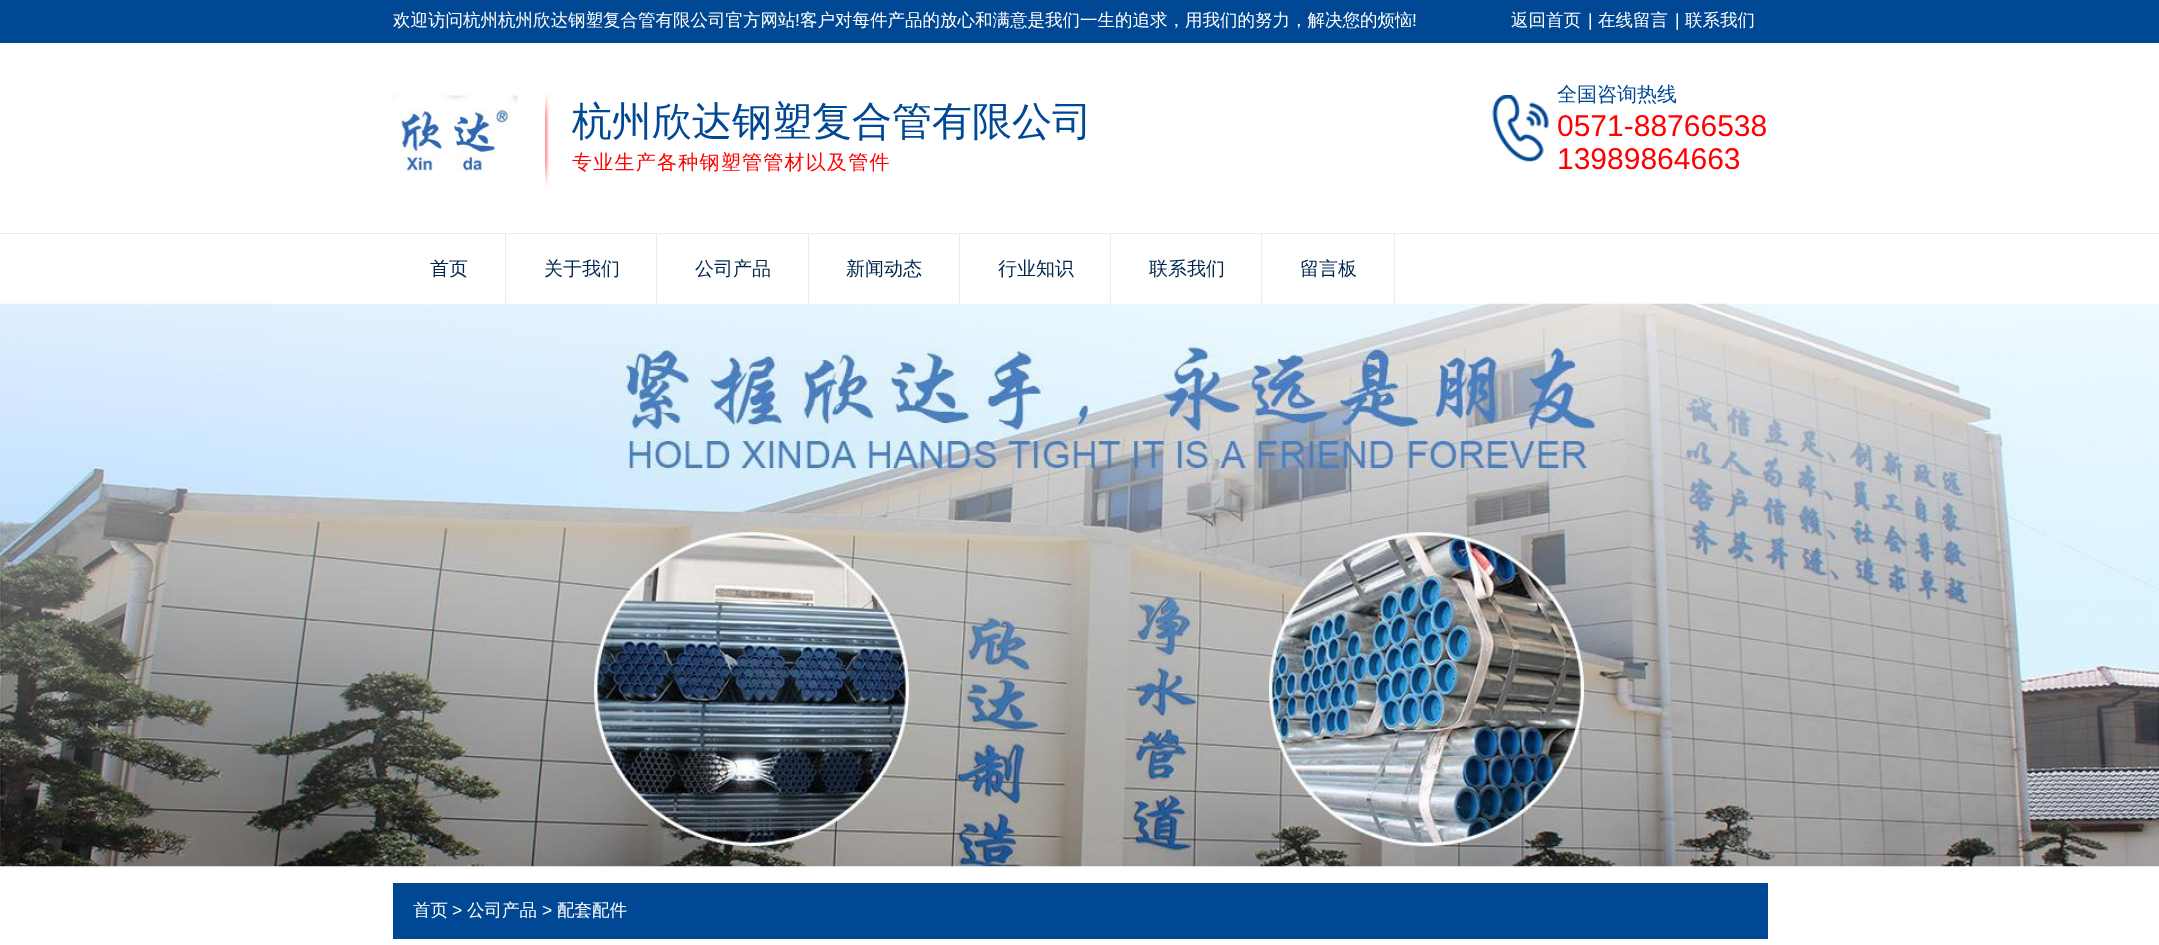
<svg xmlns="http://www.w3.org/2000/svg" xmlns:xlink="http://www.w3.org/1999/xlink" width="2159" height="945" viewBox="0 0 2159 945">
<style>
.cls-1{font:500 17.5px WenQuanYi Zen Hei;fill:#ffffff}
.cls-2{font:17.5px Liberation Sans;fill:#ffffff}
.cls-3{font:500 40px WenQuanYi Zen Hei;fill:#004893}
.cls-4{font:500 20px WenQuanYi Zen Hei;letter-spacing:1.25px;fill:#ff0000}
.cls-5{font:500 20px WenQuanYi Zen Hei;fill:#004893}
.cls-6{font:30px Liberation Sans;fill:#ff0000}
.cls-7{font:500 19px WenQuanYi Zen Hei;fill:#00254c}
</style>
<rect width="100%" height="100%" fill="#ffffff"/>
<rect fill="#004893" x="0" y="0" width="2159" height="43"/>
<image xlink:href="image0.png" x="392" y="92" width="126" height="80"/>
<image xlink:href="image1.png" x="545" y="93" width="4" height="94"/>
<image xlink:href="image2.png" x="1492" y="95" width="57" height="67"/>
<rect fill="#ebebeb" x="0" y="233" width="2159" height="1"/>
<image xlink:href="image3.png" x="0" y="303" width="2159" height="564"/>
<rect fill="#ebebeb" x="505" y="234" width="1" height="70"/>
<rect fill="#ebebeb" x="656" y="234" width="1" height="70"/>
<rect fill="#ebebeb" x="808" y="234" width="1" height="70"/>
<rect fill="#ebebeb" x="959" y="234" width="1" height="70"/>
<rect fill="#ebebeb" x="1110" y="234" width="1" height="70"/>
<rect fill="#ebebeb" x="1261" y="234" width="1" height="70"/>
<rect fill="#ebebeb" x="1394" y="234" width="1" height="70"/>
<rect fill="#004893" x="393" y="883" width="1375" height="56"/>
<text class="cls-1" x="393" y="26">欢迎访问杭州杭州欣达钢塑复合管有限公司官方网站</text>
<text class="cls-2" x="795" y="26">!</text>
<text class="cls-1" x="800" y="26">客户对每件产品的放心和满意是我们一生的追求，用我们的努力，解决您的烦恼</text>
<text class="cls-2" x="1412" y="26">!</text>
<text class="cls-1" x="1511" y="26">返回首页</text>
<text class="cls-2" x="1588" y="26">|</text>
<text class="cls-1" x="1598" y="26">在线留言</text>
<text class="cls-2" x="1675" y="26">|</text>
<text class="cls-1" x="1685" y="26">联系我们</text>
<text class="cls-3" x="572" y="135">杭州欣达钢塑复合管有限公司</text>
<text class="cls-4" x="572" y="169">专业生产各种钢塑管管材以及管件</text>
<text class="cls-5" x="1557" y="101">全国咨询热线</text>
<text class="cls-6"><tspan x="1557" y="136">0571-88766538</tspan><tspan x="1557" y="169">13989864663</tspan></text>
<text class="cls-7" x="430" y="275">首页</text>
<text class="cls-7" x="544" y="275">关于我们</text>
<text class="cls-7" x="695" y="275">公司产品</text>
<text class="cls-7" x="846" y="275">新闻动态</text>
<text class="cls-7" x="998" y="275">行业知识</text>
<text class="cls-7" x="1149" y="275">联系我们</text>
<text class="cls-7" x="1300" y="275">留言板</text>
<text class="cls-1" x="413" y="916">首页</text>
<text class="cls-2" x="452" y="916">&gt;</text>
<text class="cls-1" x="467" y="916">公司产品</text>
<text class="cls-2" x="542" y="916">&gt;</text>
<text class="cls-1" x="557" y="916">配套配件</text>
</svg>
